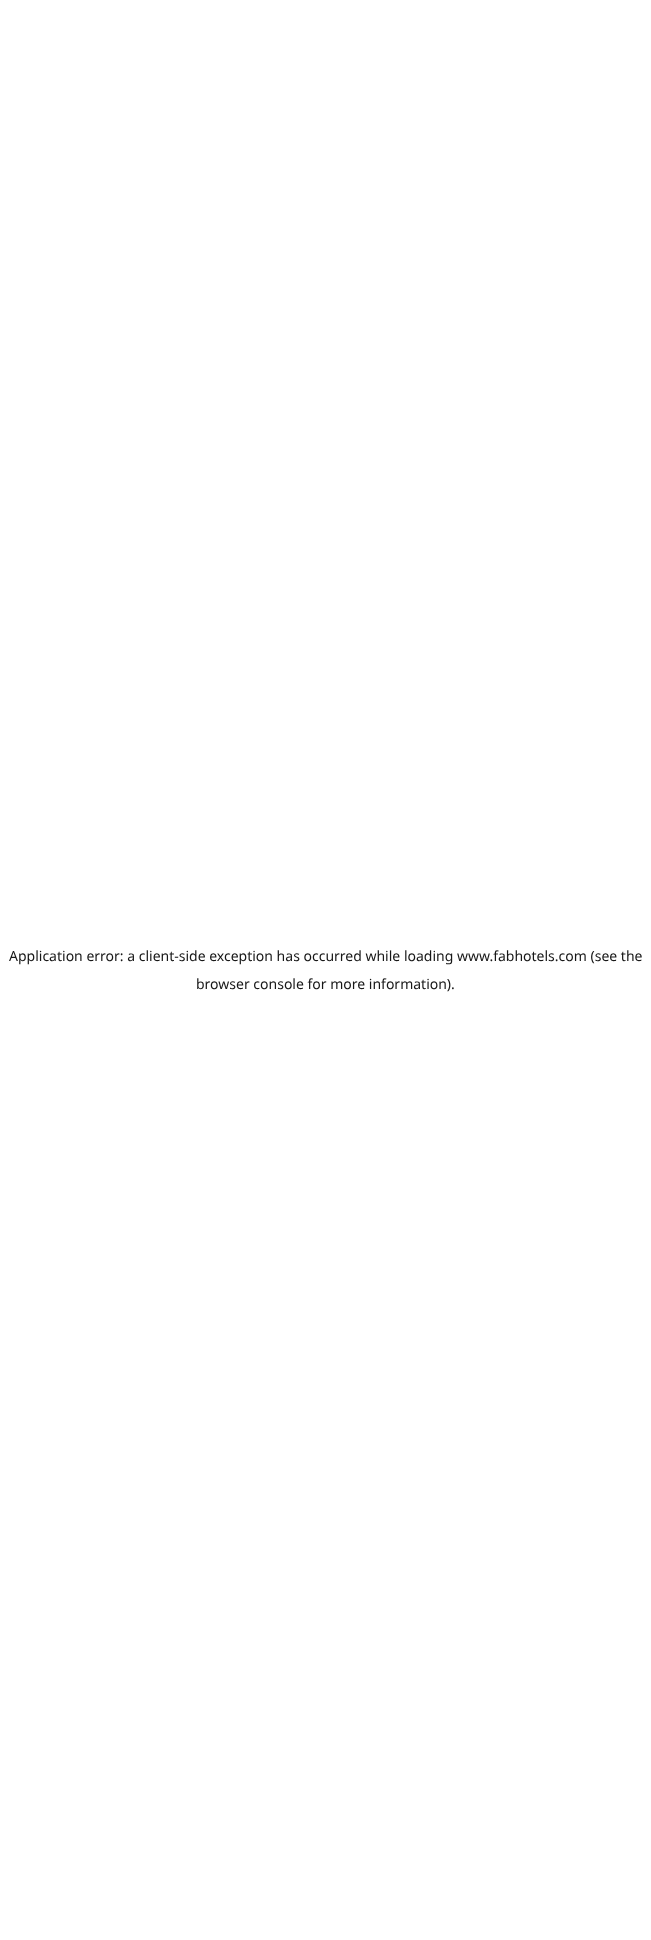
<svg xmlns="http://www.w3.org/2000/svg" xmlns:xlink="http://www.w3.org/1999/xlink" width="651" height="1940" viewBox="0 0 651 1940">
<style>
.cls-1{font:14px Noto Sans;fill:#171717}
</style>
<rect width="100%" height="100%" fill="#ffffff"/>
<text class="cls-1" x="9" y="961">Application error: a client-side exception has occurred while loading www.fabhotels.com (see the</text>
<text class="cls-1" x="196" y="989">browser console for more information).</text>
</svg>
